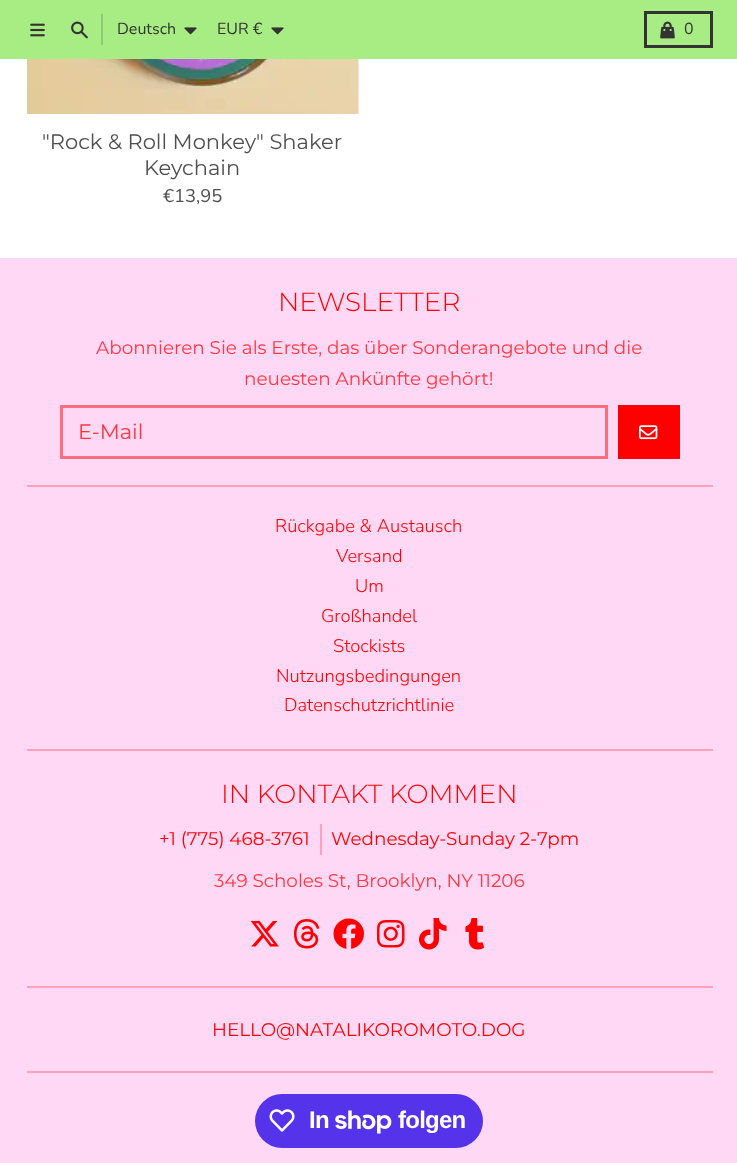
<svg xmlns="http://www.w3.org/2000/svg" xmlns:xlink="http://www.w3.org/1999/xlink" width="737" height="1163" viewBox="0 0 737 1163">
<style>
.cls-1{font:16px Nunito;fill:#333333}
.cls-2{font:21px Montserrat;fill:#4f4f4f}
.cls-3{font:18.4px Nunito;fill:#4f4f4f}
.cls-4{font:300 26.25px Montserrat;fill:#ff0000}
.cls-5{font:18.4px Montserrat;fill:#ff363e}
.cls-6{font:21px Montserrat;fill:#ff363e}
.cls-7{font:300 18.4px Nunito;fill:#ff0000}
.cls-8{font:18.4px Montserrat;fill:#ff0000}
.cls-9{font:bold 24px Liberation Sans;letter-spacing:-0.75px;fill:#ffffff}
</style>
<rect width="100%" height="100%" fill="#ffd8f6"/>
<rect fill="#a8ed83" x="0" y="0" width="737" height="59"/>
<image xlink:href="image0.png" x="30" y="23" width="15" height="14"/>
<image xlink:href="image1.png" x="71" y="21" width="17" height="18"/>
<rect fill="#91c873" x="101" y="14" width="2" height="31"/>
<image xlink:href="image2.png" x="184" y="27" width="13" height="8"/>
<image xlink:href="image2.png" x="271" y="27" width="13" height="8"/>
<rect fill="none" stroke="#333333" stroke-width="3" x="645.5" y="12.5" width="66" height="34"/>
<image xlink:href="image3.png" x="660" y="21" width="15" height="18"/>
<rect fill="#ffffff" x="0" y="59" width="737" height="199"/>
<image xlink:href="image4.png" x="27" y="59" width="332" height="55"/>
<rect fill="none" stroke="#ff6c7b" stroke-width="3" x="61.5" y="406.5" width="545" height="51"/>
<rect fill="#ff0000" x="618" y="405" width="62" height="54"/>
<image xlink:href="image5.png" x="639" y="425" width="19" height="15"/>
<rect fill="#ffa2b9" x="27" y="485" width="686" height="2"/>
<rect fill="#ffa2b9" x="27" y="749" width="686" height="2"/>
<rect fill="#ffa2b9" x="320" y="824" width="2" height="31"/>
<image xlink:href="image6.png" x="250" y="920" width="29" height="27"/>
<image xlink:href="image7.png" x="294" y="919" width="26" height="30"/>
<image xlink:href="image8.png" x="333" y="918" width="31" height="31"/>
<image xlink:href="image9.png" x="376" y="919" width="29" height="29"/>
<image xlink:href="image10.png" x="419" y="918" width="28" height="32"/>
<image xlink:href="image11.png" x="465" y="918" width="20" height="32"/>
<rect fill="#ffa2b9" x="27" y="986" width="686" height="2"/>
<rect fill="#ffa2b9" x="27" y="1071" width="686" height="2"/>
<rect fill="#5433eb" x="255" y="1094" width="228" height="54" rx="27"/>
<image xlink:href="image12.png" x="269" y="1109" width="26" height="23"/>
<image xlink:href="image13.png" x="335" y="1110" width="57" height="24"/>
<text class="cls-1" x="117" y="34">Deutsch</text>
<text class="cls-1" x="217" y="34">EUR €</text>
<text class="cls-1" x="684" y="34">0</text>
<text class="cls-2" x="42" y="149">"Rock &amp; Roll Monkey" Shaker</text>
<text class="cls-2" x="144" y="175">Keychain</text>
<text class="cls-3" x="163" y="202">€13,95</text>
<text class="cls-4" x="278" y="311">NEWSLETTER</text>
<text class="cls-5" x="96" y="354">Abonnieren Sie als Erste, das über Sonderangebote und die</text>
<text class="cls-5" x="244" y="385">neuesten Ankünfte gehört!</text>
<text class="cls-6" x="78" y="439">E-Mail</text>
<text class="cls-7" x="275" y="532">Rückgabe &amp; Austausch</text>
<text class="cls-7" x="336" y="562">Versand</text>
<text class="cls-7" x="355" y="592">Um</text>
<text class="cls-7" x="321" y="622">Großhandel</text>
<text class="cls-7" x="333" y="652">Stockists</text>
<text class="cls-7" x="276" y="682">Nutzungsbedingungen</text>
<text class="cls-7" x="284" y="711">Datenschutzrichtlinie</text>
<text class="cls-4" x="221" y="803">IN KONTAKT KOMMEN</text>
<text class="cls-8" x="159" y="845">+1 (775) 468-3761</text>
<text class="cls-8" x="331" y="845">Wednesday-Sunday 2-7pm</text>
<text class="cls-5" x="214" y="887">349 Scholes St, Brooklyn, NY 11206</text>
<text class="cls-8" x="212" y="1036">HELLO@NATALIKOROMOTO.DOG</text>
<text class="cls-9" x="309" y="1128">In</text>
<text class="cls-9" x="398" y="1128">folgen</text>
</svg>
